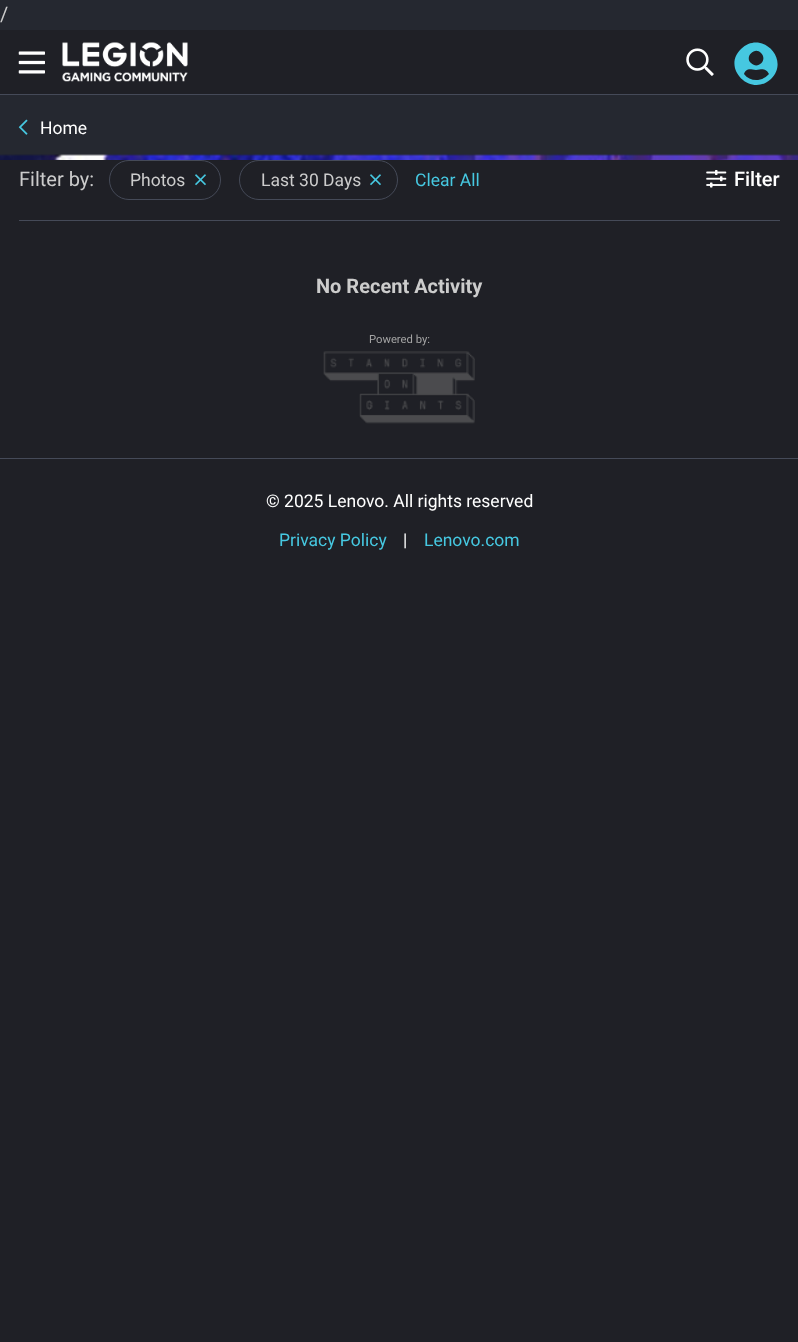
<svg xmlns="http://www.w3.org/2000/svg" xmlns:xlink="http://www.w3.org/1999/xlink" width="798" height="1342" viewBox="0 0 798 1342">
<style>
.cls-1{font:20px Roboto;fill:#cccccc}
.cls-2{font:17.5px Roboto;fill:#ffffff}
.cls-3{font:17.5px Roboto;fill:#cccccc}
.cls-4{font:17.5px Roboto;fill:#46c8e1}
.cls-5{font:500 20px Roboto;fill:#ffffff}
.cls-6{font:bold 20px Roboto;fill:#cccccc}
.cls-7{font:11.25px Roboto;fill:#a5a5a5}
</style>
<rect width="100%" height="100%" fill="#252830"/>
<image xlink:href="image0.png" x="0" y="154" width="798" height="6"/>
<rect fill="#1f2026" x="0" y="30" width="798" height="64"/>
<rect fill="#454a58" x="0" y="94" width="798" height="1"/>
<image xlink:href="image1.png" x="62" y="42" width="126" height="40"/>
<image xlink:href="image2.png" x="686" y="48" width="28" height="28"/>
<path fill="#46c8e1" d="M741 49C761 29 791 59 771 79C751 98 721 68 741 49ZM761 53C755 46 744 57 751 63C758 70 768 60 761 53ZM744 74C750 82 762 82 769 74C765 67 761 70 756 70C751 70 747 67 744 74Z"/>
<image xlink:href="image3.png" x="18" y="51" width="27" height="23"/>
<image xlink:href="image4.png" x="18" y="119" width="10" height="16"/>
<rect fill="#1f2026" x="0" y="160" width="798" height="1182"/>
<rect fill="#454a58" x="19" y="220" width="761" height="1"/>
<rect fill="none" stroke="#454a58" x="109.5" y="160.5" width="111" height="39" rx="19.5"/>
<image xlink:href="image5.png" x="195" y="174" width="11" height="12"/>
<rect fill="none" stroke="#454a58" x="239.5" y="160.5" width="158" height="39" rx="19.5"/>
<image xlink:href="image5.png" x="370" y="174" width="11" height="12"/>
<image xlink:href="image6.png" x="706" y="170" width="21" height="18"/>
<image xlink:href="image7.png" x="323" y="351" width="152" height="73"/>
<rect fill="#454a58" x="0" y="458" width="798" height="1"/>
<text class="cls-1" x="0" y="21">/</text>
<text class="cls-2" x="40" y="134">Home</text>
<text class="cls-1" x="19" y="186">Filter by:</text>
<text class="cls-3" x="130" y="186">Photos</text>
<text class="cls-3" x="261" y="186">Last 30 Days</text>
<text class="cls-4" x="415" y="186">Clear All</text>
<text class="cls-5" x="734" y="186">Filter</text>
<text class="cls-6" x="316" y="293">No Recent Activity</text>
<text class="cls-7" x="369" y="343">Powered by:</text>
<text class="cls-2" x="266" y="507">© 2025 Lenovo. All rights reserved</text>
<text class="cls-4" x="279" y="546">Privacy Policy</text>
<text class="cls-2" x="403" y="546">|</text>
<text class="cls-4" x="424" y="546">Lenovo.com</text>
</svg>
